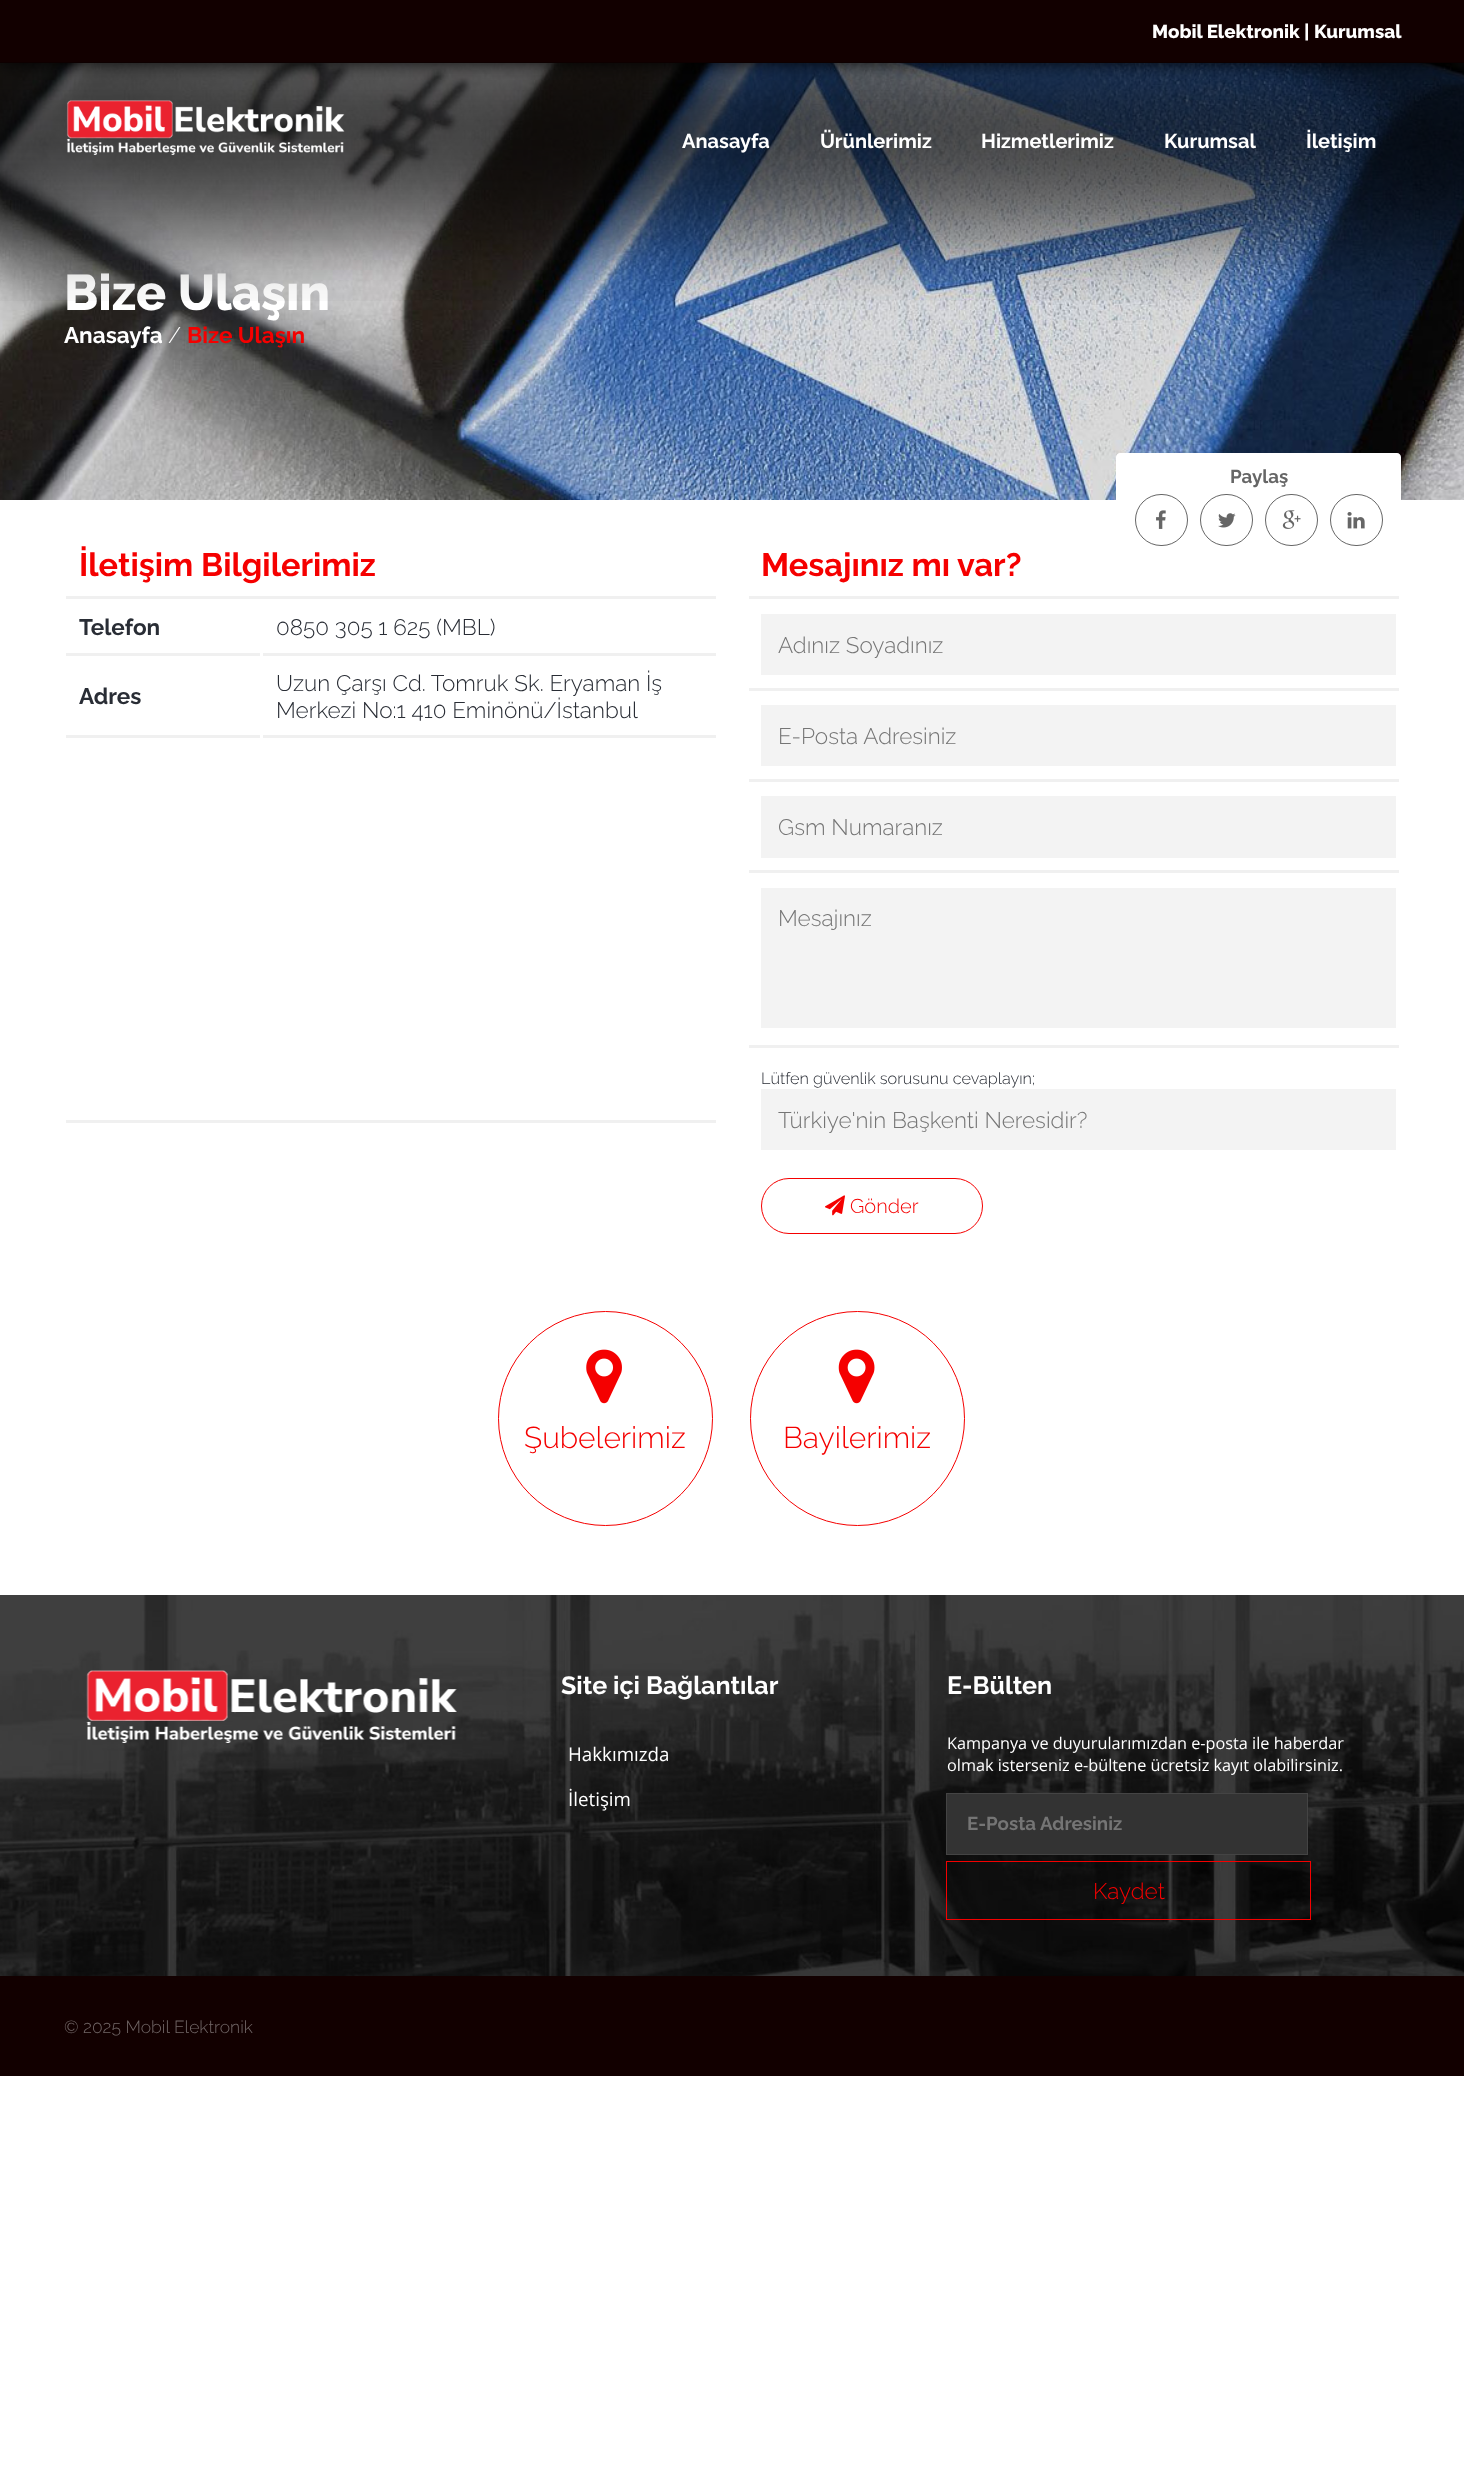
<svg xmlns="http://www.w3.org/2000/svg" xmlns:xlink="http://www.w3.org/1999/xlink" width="1464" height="2483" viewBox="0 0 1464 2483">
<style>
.cls-1{font:800 18.75px Raleway;fill:#ffffff}
.cls-2{font:800 50px Raleway;fill:#ffffff}
.cls-3{font:bold 20px Raleway;fill:#ffffff}
.cls-4{font:bold 22.5px Raleway;fill:#ffffff}
.cls-5{font:300 22.5px Raleway;fill:#ffffff}
.cls-6{font:bold 22.5px Raleway;fill:#f50000}
.cls-7{font:bold 18.75px Raleway;fill:#666666}
.cls-8{font:bold 32.5px Raleway;fill:#f50000}
.cls-9{font:bold 22.5px Raleway;fill:#292d35}
.cls-10{font:300 22.5px Raleway;fill:#292d35}
.cls-11{font:300 22.5px Raleway;fill:#757575}
.cls-12{font:300 16.25px Raleway;fill:#292d35}
.cls-13{font:300 20px Raleway;fill:#f50000}
.cls-14{font:300 30px Raleway;fill:#f50000}
.cls-15{font:bold 25px Raleway;fill:#ffffff}
.cls-16{font:18.75px Open Sans;fill:#ffffff}
.cls-17{font:16.25px Open Sans;fill:#ffffff}
.cls-18{font:bold 18.75px Raleway;fill:#757575}
.cls-19{font:300 22.5px Raleway;fill:#f50000}
.cls-20{font:300 17.5px Raleway;fill:#716666}
</style>
<rect width="100%" height="100%" fill="#ffffff"/>
<image xlink:href="image2.png" x="0" y="63" width="1464" height="437"/>
<rect fill="#000000" filter="blur(9.5px)" x="0" y="0" width="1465" height="63"/>
<rect fill="#120000" x="0" y="0" width="1464" height="63"/>
<path fill="#ffffff" d="M1120 453H1397C1399 453 1401 455 1401 457V565H1116V457C1116 455 1118 453 1120 453Z"/>
<rect fill="none" stroke="#666666" x="1135.5" y="494.5" width="52" height="51" rx="25.5"/>
<image xlink:href="image3.png" x="1156" y="510" width="10" height="19"/>
<rect fill="none" stroke="#666666" x="1200.5" y="494.5" width="52" height="51" rx="25.5"/>
<image xlink:href="image4.png" x="1218" y="513" width="18" height="15"/>
<rect fill="none" stroke="#666666" x="1265.5" y="494.5" width="52" height="51" rx="25.5"/>
<image xlink:href="image5.png" x="1282" y="510" width="19" height="19"/>
<rect fill="none" stroke="#666666" x="1330.5" y="494.5" width="52" height="51" rx="25.5"/>
<image xlink:href="image6.png" x="1347" y="512" width="18" height="17"/>
<rect fill="#f0f0f0" x="66" y="596" width="650" height="3"/>
<rect fill="#f0f0f0" x="66" y="653" width="194" height="3"/>
<rect fill="#f0f0f0" x="263" y="653" width="453" height="3"/>
<rect fill="#f0f0f0" x="66" y="735" width="194" height="3"/>
<rect fill="#f0f0f0" x="263" y="735" width="453" height="3"/>
<rect fill="#f0f0f0" x="66" y="1120" width="650" height="3"/>
<rect fill="#f0f0f0" x="749" y="596" width="650" height="3"/>
<rect fill="#f0f0f0" x="749" y="688" width="650" height="3"/>
<rect fill="#f3f3f3" x="761" y="614" width="635" height="61"/>
<rect fill="#f0f0f0" x="749" y="779" width="650" height="3"/>
<rect fill="#f3f3f3" x="761" y="705" width="635" height="61"/>
<rect fill="#f0f0f0" x="749" y="870" width="650" height="3"/>
<rect fill="#f3f3f3" x="761" y="796" width="635" height="62"/>
<rect fill="#f0f0f0" x="749" y="1045" width="650" height="3"/>
<rect fill="#f3f3f3" x="761" y="888" width="635" height="140"/>
<rect fill="#f3f3f3" x="761" y="1089" width="635" height="61"/>
<rect fill="none" stroke="#f50000" x="761.5" y="1178.5" width="221" height="55" rx="27.5"/>
<image xlink:href="image7.png" x="825" y="1195" width="20" height="21"/>
<circle fill="none" stroke="#f50000" cx="605.5" cy="1418.5" r="107"/>
<image xlink:href="image8.png" x="586" y="1349" width="36" height="55"/>
<circle fill="none" stroke="#f50000" cx="857.5" cy="1418.5" r="107"/>
<image xlink:href="image9.png" x="838" y="1349" width="37" height="55"/>
<image xlink:href="image10.png" x="0" y="1595" width="1464" height="381"/>
<image xlink:href="image11.png" x="86" y="1670" width="371" height="73"/>
<rect fill="#333333" stroke="#444444" x="946.5" y="1793.5" width="361" height="61"/>
<rect fill="none" stroke="#f50000" x="946.5" y="1861.5" width="364" height="58"/>
<rect fill="#120000" x="0" y="1976" width="1464" height="100"/>
<text class="cls-1" x="1152" y="38">Mobil Elektronik | Kurumsal</text>
<text class="cls-2" x="64" y="310">Bize Ulaşın</text>
<image xlink:href="image0.png" x="0" y="62" width="1464" height="239"/>
<text class="cls-3" x="1306" y="148">İletişim</text>
<text class="cls-3" x="1164" y="148">Kurumsal</text>
<text class="cls-3" x="981" y="148">Hizmetlerimiz</text>
<text class="cls-3" x="820" y="148">Ürünlerimiz</text>
<text class="cls-3" x="682" y="148">Anasayfa</text>
<image xlink:href="image1.png" x="66" y="100" width="279" height="55"/>
<text class="cls-4" x="64" y="343">Anasayfa</text>
<text class="cls-5" x="168" y="343">/</text>
<text class="cls-6" x="187" y="343">Bize Ulaşın</text>
<text class="cls-7" x="1230" y="483">Paylaş</text>
<text class="cls-8" x="79" y="576">İletişim Bilgilerimiz</text>
<text class="cls-9" x="79" y="635">Telefon</text>
<text class="cls-10" x="276" y="635">0850 305 1 625 (MBL)</text>
<text class="cls-9" x="79" y="704">Adres</text>
<text class="cls-10"><tspan x="276" y="691">Uzun Çarşı Cd. Tomruk Sk. Eryaman İş</tspan><tspan x="276" y="718">Merkezi No:1 410 Eminönü/İstanbul</tspan></text>
<text class="cls-8" x="761" y="576">Mesajınız mı var?</text>
<text class="cls-11" x="778" y="653">Adınız Soyadınız</text>
<text class="cls-11" x="778" y="744">E-Posta Adresiniz</text>
<text class="cls-11" x="778" y="835">Gsm Numaranız</text>
<text class="cls-11" x="778" y="926">Mesajınız</text>
<text class="cls-12" x="761" y="1084">Lütfen güvenlik sorusunu cevaplayın;</text>
<text class="cls-11" x="778" y="1128">Türkiye'nin Başkenti Neresidir?</text>
<text class="cls-13" x="850" y="1213">Gönder</text>
<text class="cls-14" x="524" y="1448">Şubelerimiz</text>
<text class="cls-14" x="783" y="1448">Bayilerimiz</text>
<text class="cls-15" x="561" y="1694">Site içi Bağlantılar</text>
<text class="cls-16" x="568" y="1761">Hakkımızda</text>
<text class="cls-16" x="568" y="1806">İletişim</text>
<text class="cls-15" x="947" y="1694">E-Bülten</text>
<text class="cls-17"><tspan x="947" y="1749">Kampanya ve duyurularımızdan e-posta ile haberdar</tspan><tspan x="947" y="1771">olmak isterseniz e-bültene ücretsiz kayıt olabilirsiniz.</tspan></text>
<text class="cls-18" x="967" y="1830">E-Posta Adresiniz</text>
<text class="cls-19" x="1093" y="1899">Kaydet</text>
<text class="cls-20" x="64" y="2033">© 2025 Mobil Elektronik</text>
</svg>
